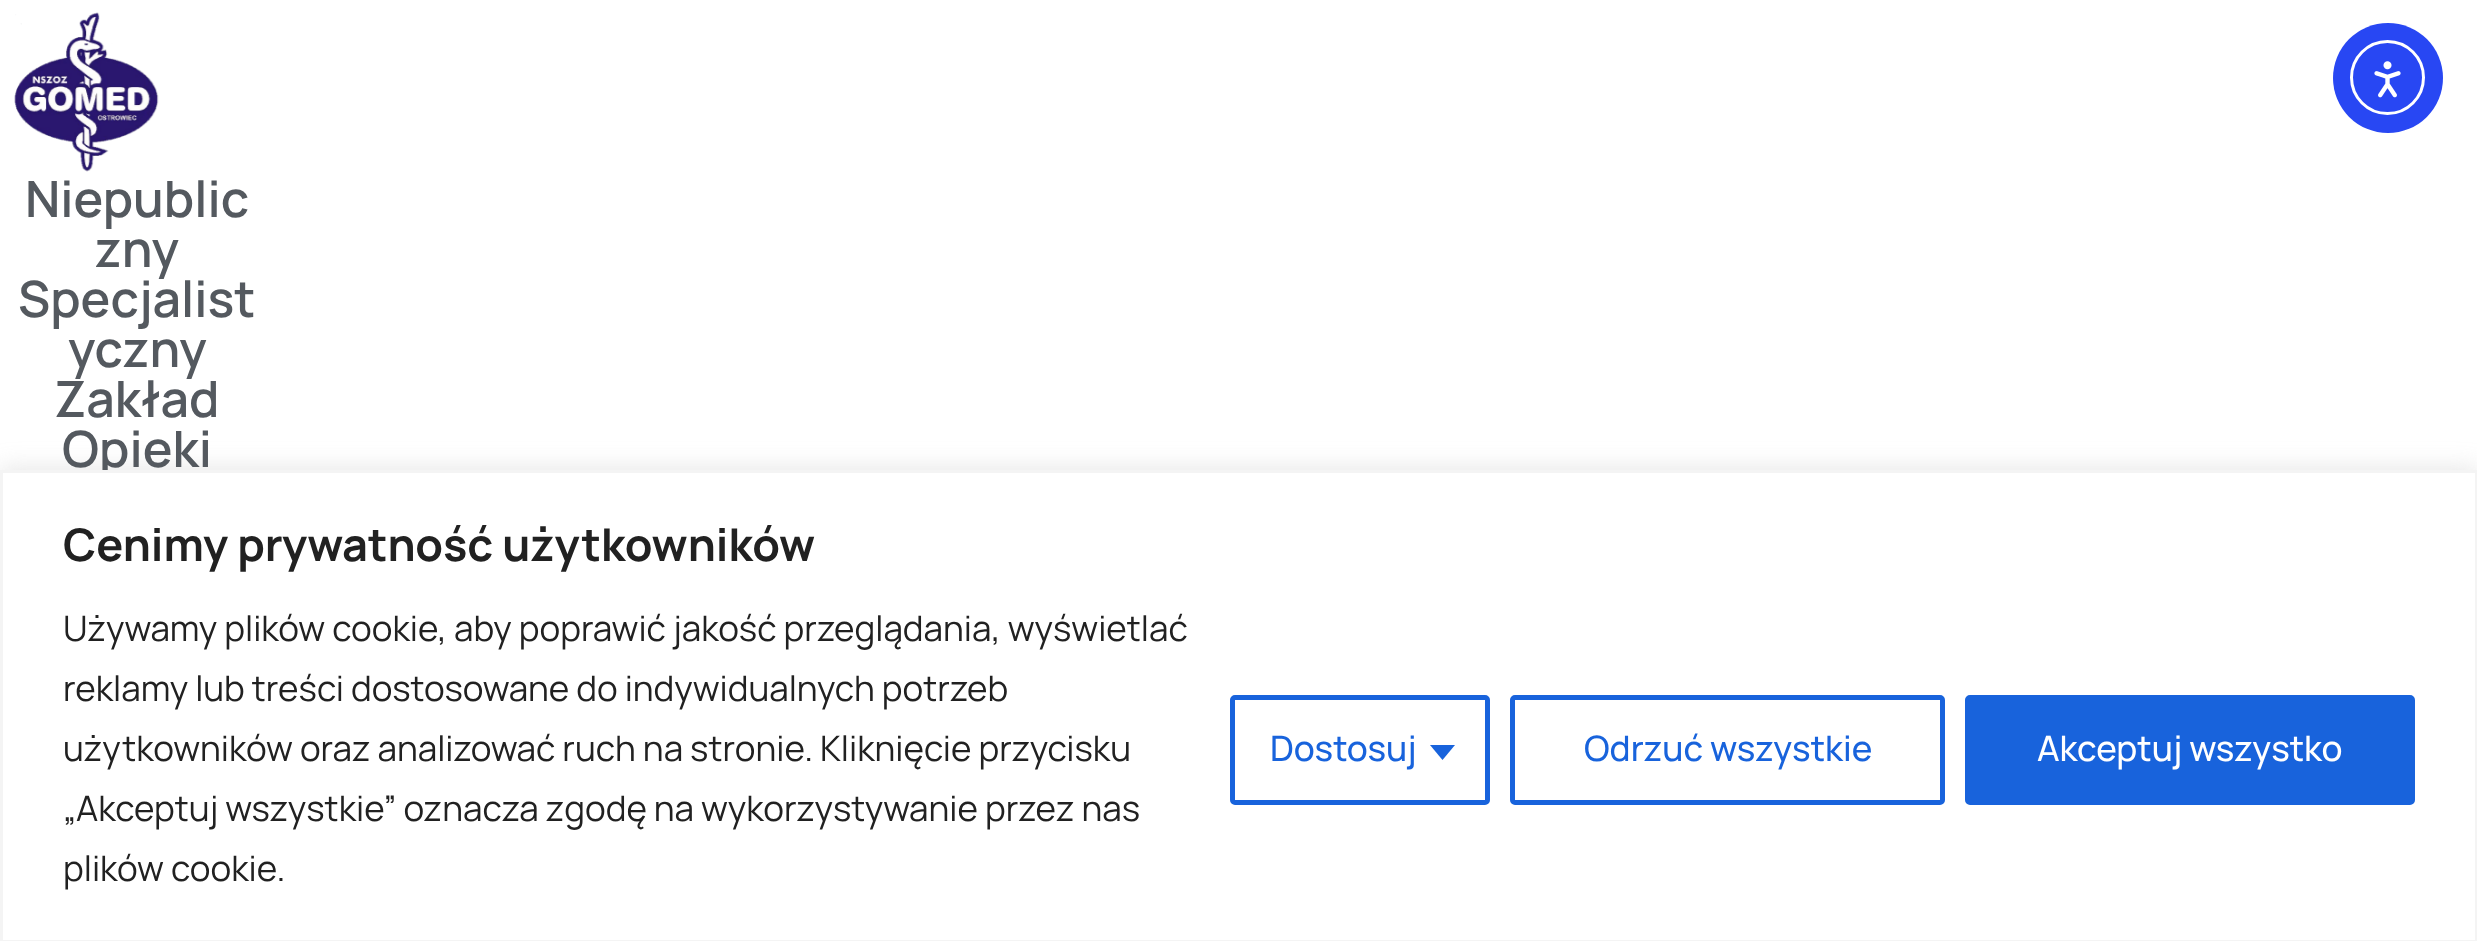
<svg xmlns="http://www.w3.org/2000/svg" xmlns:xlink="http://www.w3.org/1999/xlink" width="2477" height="941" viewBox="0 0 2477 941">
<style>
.cls-1{font:600 50px Manrope;fill:#54595f}
.cls-2{font:bold 45px Manrope;fill:#212121}
.cls-3{font:35px Manrope;fill:#212121}
.cls-4{font:500 35px Manrope;fill:#1863dc}
.cls-5{font:500 35px Manrope;fill:#ffffff}
</style>
<rect width="100%" height="100%" fill="#ffffff"/>
<circle fill="#2847f3" cx="2388" cy="78" r="55"/>
<circle fill="none" stroke="#ffffff" stroke-width="3" cx="2387.5" cy="77.5" r="36"/>
<image xlink:href="image0.png" x="2374" y="61" width="27" height="37"/>
<image xlink:href="image1.png" x="14" y="12" width="145" height="160"/>
<rect fill="#acabab" fill-opacity="0.3" filter="blur(12.5px)" x="0" y="468" width="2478" height="472"/>
<text class="cls-1" x="25" y="217">Niepublic</text>
<text class="cls-1" x="95" y="267">zny</text>
<text class="cls-1" x="18" y="317">Specjalist</text>
<text class="cls-1" x="68" y="367">yczny</text>
<text class="cls-1" x="54" y="417">Zakład</text>
<text class="cls-1" x="62" y="467">Opieki</text>
<rect fill="#ffffff" stroke="#f4f4f4" stroke-width="3" x="1.5" y="471.5" width="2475" height="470"/>
<text class="cls-2" x="63" y="561">Cenimy prywatność użytkowników</text>
<text class="cls-3"><tspan x="63" y="641">Używamy plików cookie, aby poprawić jakość przeglądania, wyświetlać</tspan><tspan x="63" y="701">reklamy lub treści dostosowane do indywidualnych potrzeb</tspan><tspan x="63" y="761">użytkowników oraz analizować ruch na stronie. Kliknięcie przycisku</tspan><tspan x="63" y="821">„Akceptuj wszystkie” oznacza zgodę na wykorzystywanie przez nas</tspan><tspan x="63" y="881">plików cookie.</tspan></text>
<rect fill="none" stroke="#1863dc" stroke-width="5" x="1232.5" y="697.5" width="255" height="105" rx="2.5"/>
<text class="cls-4" x="1270" y="761">Dostosuj</text>
<path fill="#1863dc" d="M1430 745H1455L1442.5 760Z"/>
<rect fill="none" stroke="#1863dc" stroke-width="5" x="1512.5" y="697.5" width="430" height="105" rx="2.5"/>
<text class="cls-4" x="1584" y="761">Odrzuć wszystkie</text>
<rect fill="#1863dc" stroke="#1863dc" stroke-width="5" x="1967.5" y="697.5" width="445" height="105" rx="2.5"/>
<text class="cls-5" x="2037" y="761">Akceptuj wszystko</text>
</svg>
